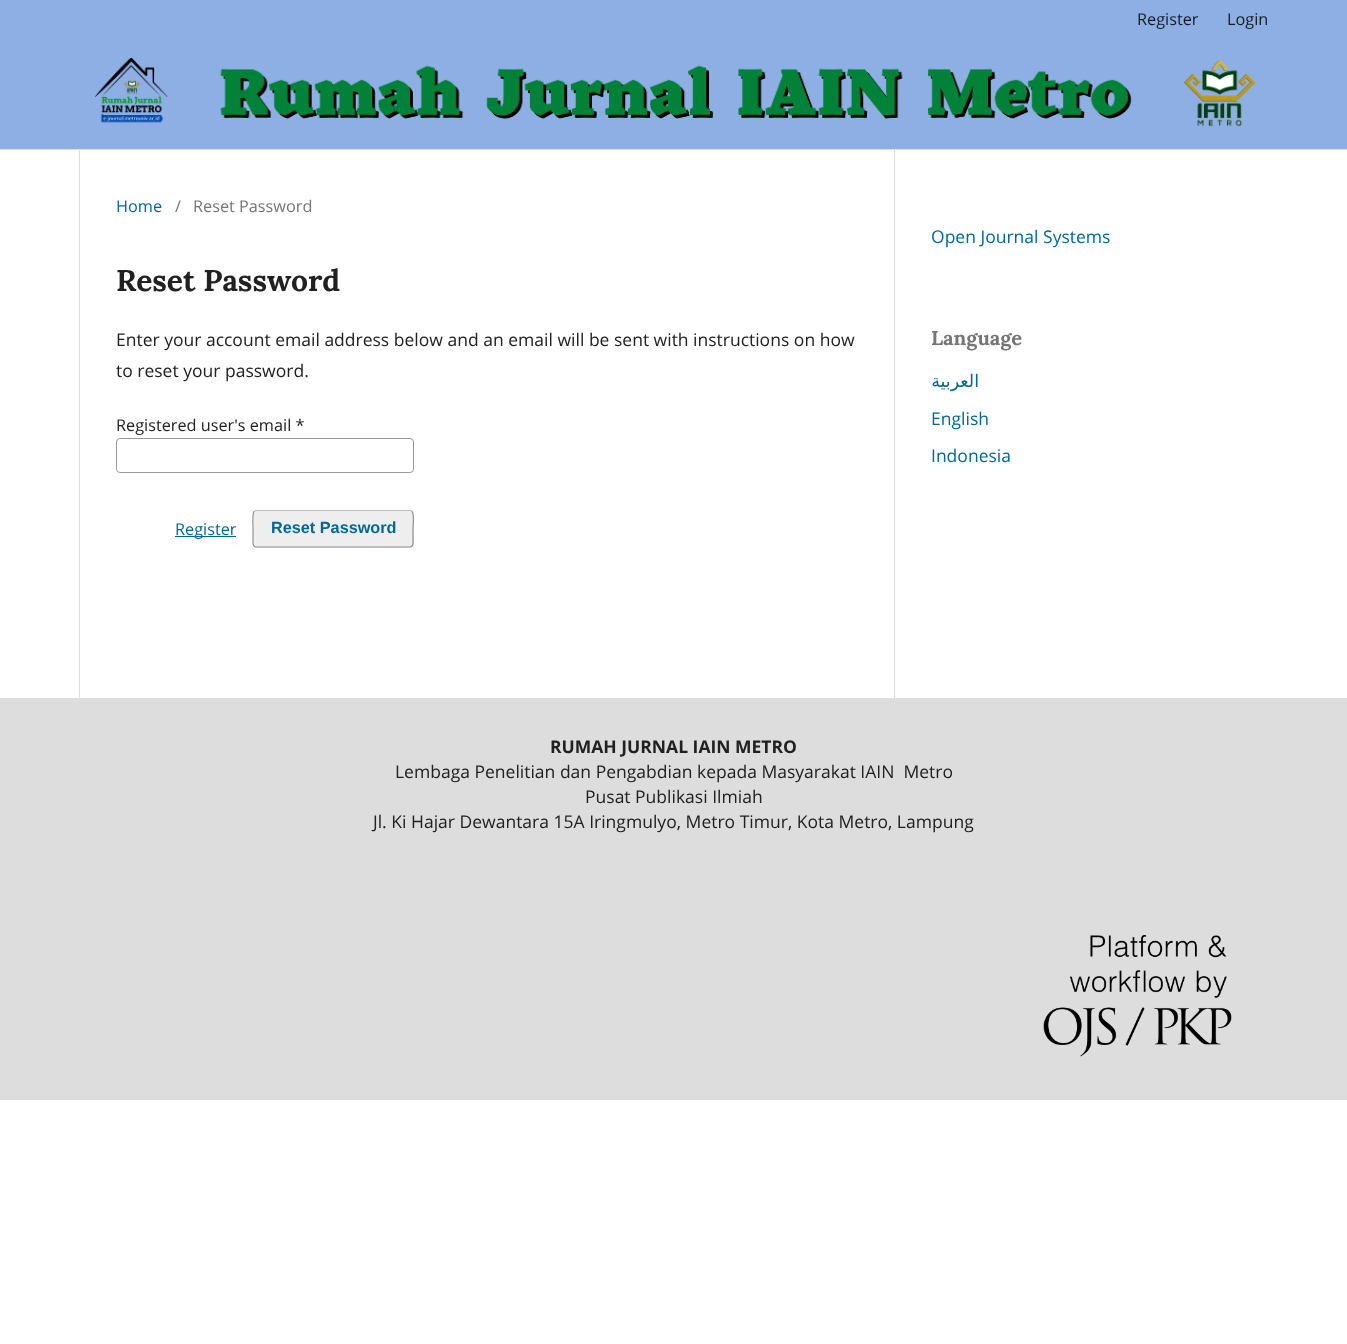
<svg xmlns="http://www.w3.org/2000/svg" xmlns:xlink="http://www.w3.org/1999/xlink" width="1347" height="1344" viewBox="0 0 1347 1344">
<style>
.cls-1{font:16.25px Open Sans;fill:#171c24}
.cls-2{font:16.25px Open Sans;fill:#006798}
.cls-3{font:16.25px Open Sans;fill:#757575}
.cls-4{font:bold 30px Lora;fill:#212121}
.cls-5{font:17.5px Open Sans;fill:#212121}
.cls-6{font:16.25px Open Sans;fill:#212121}
.cls-7{font:bold 16.25px Liberation Sans;fill:#006798}
.cls-8{font:17.5px Open Sans;fill:#006798}
.cls-9{font:bold 20px Lora;fill:#757575}
.cls-10{font:17.5px DejaVu Sans;direction:rtl;fill:#006798}
.cls-11{font:bold 17.5px Open Sans;fill:#212121}
</style>
<rect width="100%" height="100%" fill="#ffffff"/>
<rect fill="#8dafe4" x="0" y="0" width="1347" height="149"/>
<rect fill="#dddddd" x="0" y="149" width="1347" height="1"/>
<image xlink:href="image0.png" x="95" y="57" width="1161" height="70"/>
<rect fill="#dddddd" x="79" y="150" width="1" height="548"/>
<rect fill="none" stroke="#999999" x="116.5" y="438.5" width="297" height="34" rx="3.5"/>
<rect fill="#006798" x="175" y="536" width="61" height="1"/>
<rect fill="#eeeeee" x="253" y="510" width="161" height="38" rx="4"/>
<path fill="none" stroke="#bbbbbb" stroke-width="1.2" d="M254 511.5L256 510.5H410.5L412 511.5"/>
<path fill="none" stroke="#000000" stroke-opacity="0.4" stroke-width="1.2" d="M412 511.5C414.5 513.5 413 525.5 413 529V539C413 541 414 547 410 547H256C252 547 253 541 253 539V529C253 525.5 252 513.5 254 511.5"/>
<rect fill="#dddddd" x="894" y="150" width="1" height="548"/>
<rect fill="#dddddd" x="0" y="698" width="1347" height="402"/>
<image xlink:href="image1.png" x="1043" y="935" width="189" height="122"/>
<text class="cls-1" x="1137" y="25">Register</text>
<text class="cls-1" x="1227" y="25">Login</text>
<text class="cls-2" x="116" y="212">Home</text>
<text class="cls-3" x="175" y="212">/</text>
<text class="cls-3" x="193" y="212">Reset Password</text>
<text class="cls-4" x="116" y="291">Reset Password</text>
<text class="cls-5"><tspan x="116" y="346">Enter your account email address below and an email will be sent with instructions on how</tspan><tspan x="116" y="377">to reset your password.</tspan></text>
<text class="cls-6" x="116" y="431">Registered user's email *</text>
<text class="cls-2" x="175" y="535">Register</text>
<text class="cls-7" x="271" y="533">Reset Password</text>
<text class="cls-8" x="931" y="243">Open Journal Systems</text>
<text class="cls-9" x="931" y="345">Language</text>
<text class="cls-10" x="979" y="387">العربية</text>
<text class="cls-8" x="931" y="425">English</text>
<text class="cls-8" x="931" y="462">Indonesia</text>
<text class="cls-11" x="550" y="753">RUMAH JURNAL IAIN METRO</text>
<text class="cls-5" xml:space="preserve" x="395" y="778">Lembaga Penelitian dan Pengabdian kepada Masyarakat IAIN  Metro</text>
<text class="cls-5" x="585" y="803">Pusat Publikasi Ilmiah</text>
<text class="cls-5" x="373" y="828">Jl. Ki Hajar Dewantara 15A Iringmulyo, Metro Timur, Kota Metro, Lampung</text>
</svg>
